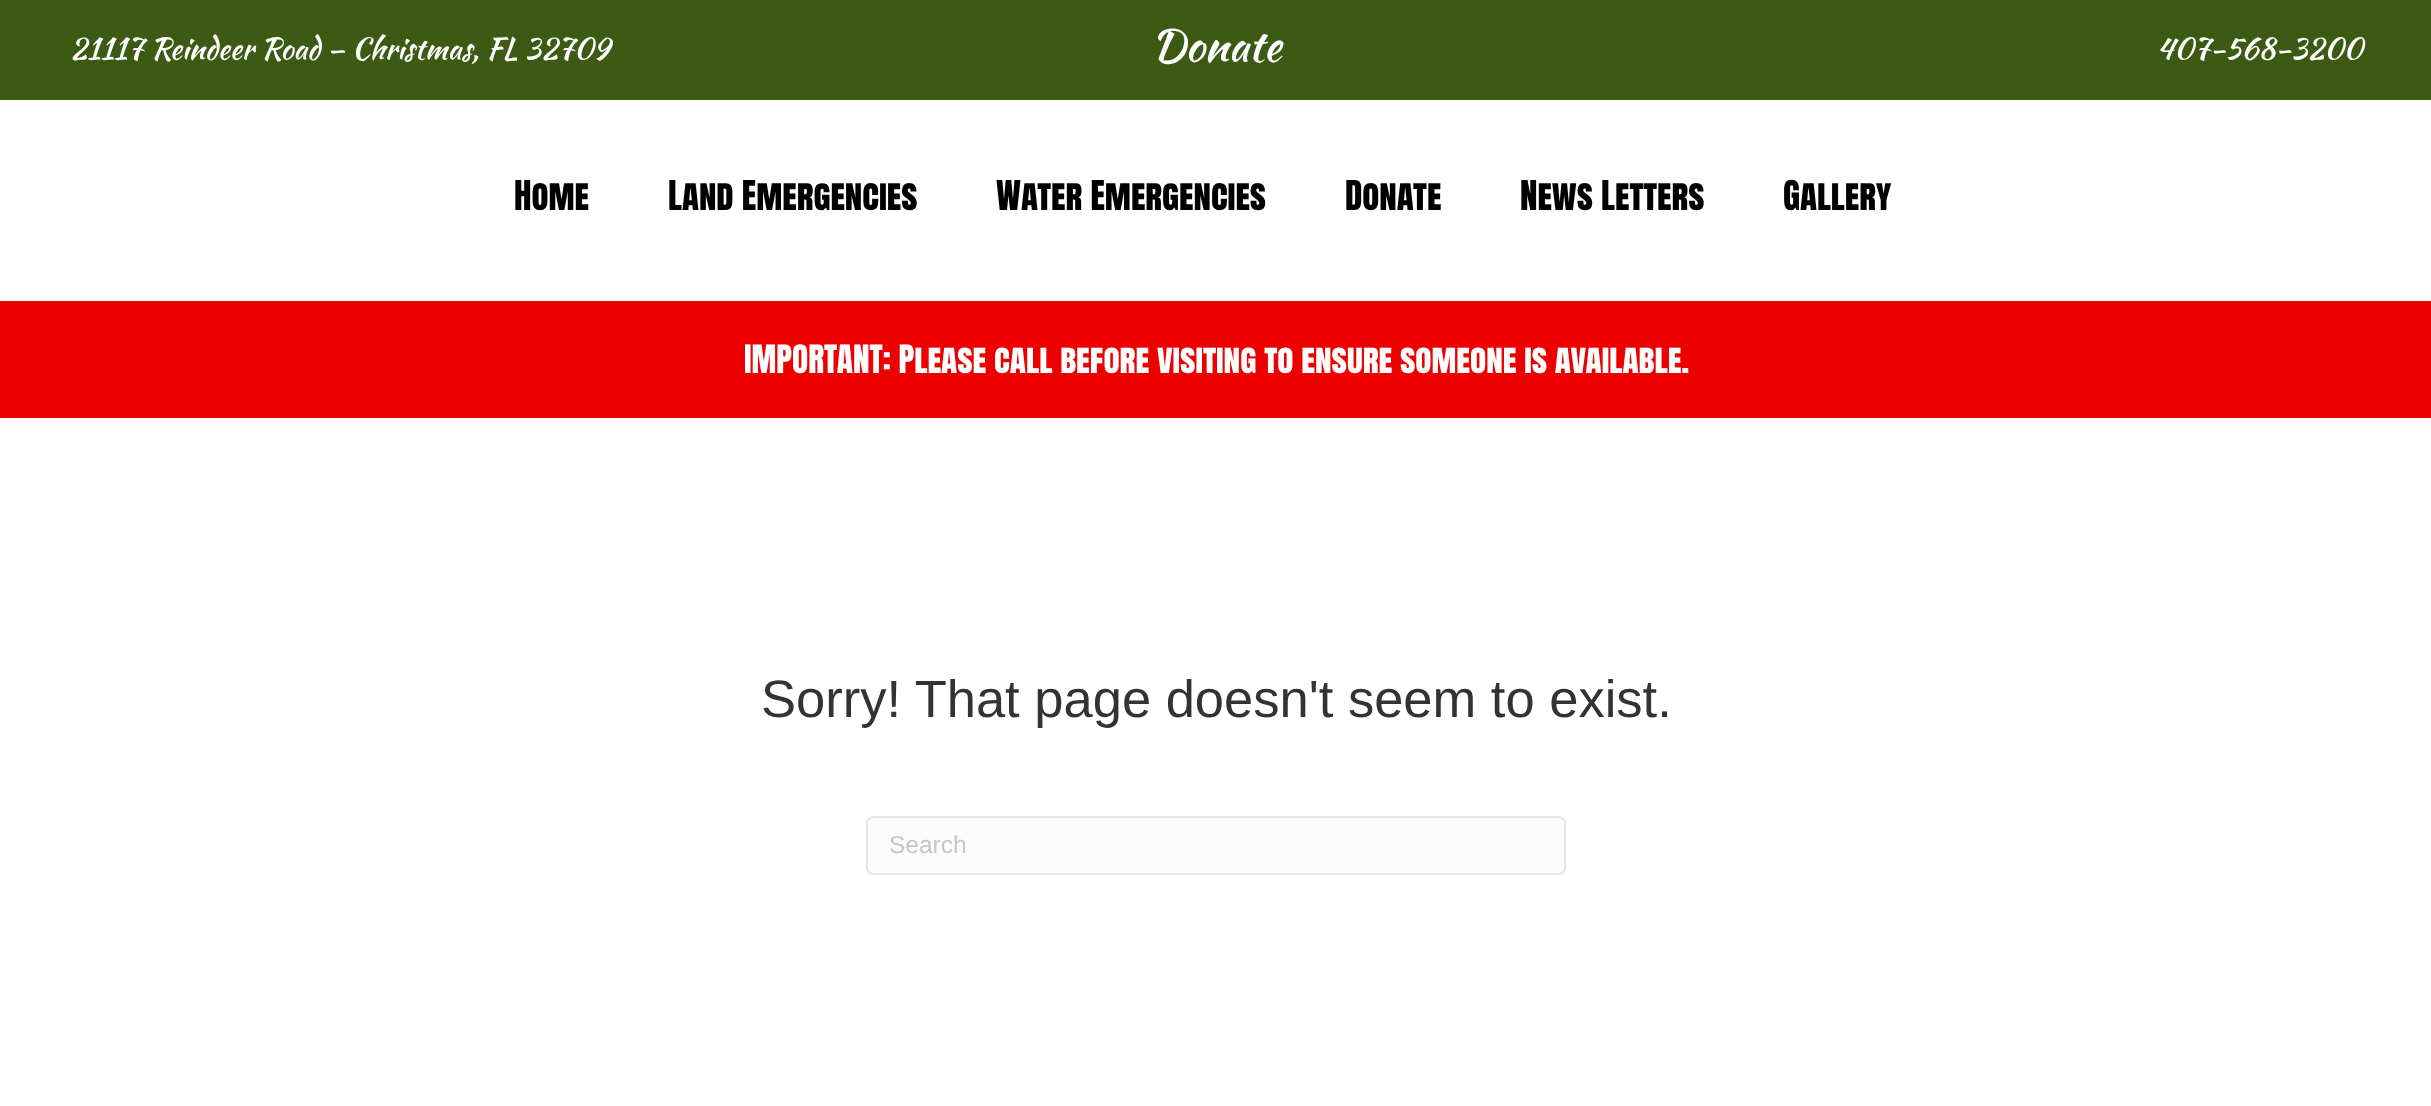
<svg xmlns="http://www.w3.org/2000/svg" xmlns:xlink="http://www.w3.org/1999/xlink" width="2431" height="1106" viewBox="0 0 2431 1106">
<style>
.cls-1{font:29.75px Kaushan Script;fill:#ffffff}
.cls-2{font:44px Kaushan Script;fill:#ffffff}
.cls-3{font:35px Anton SC;fill:#000000}
.cls-4{font:33.25px Anton SC;fill:#ffffff}
.cls-5{font:52.5px Liberation Sans;fill:#333333}
.cls-6{font:24.5px Liberation Sans;fill:#c6c6c6}
</style>
<rect width="100%" height="100%" fill="#ffffff"/>
<rect fill="#3c5a14" x="0" y="0" width="2431" height="100"/>
<rect fill="#ed0000" x="0" y="301" width="2431" height="117"/>
<rect fill="#fcfcfc" stroke="#e6e6e6" stroke-width="2" x="867" y="817" width="698" height="57" rx="6"/>
<text class="cls-1" x="70" y="59">21117 Reindeer Road – Christmas, FL 32709</text>
<text class="cls-2" x="1151" y="61">Donate</text>
<text class="cls-1" x="2157" y="59">407-568-3200</text>
<text class="cls-3" x="514" y="210">Home</text>
<text class="cls-3" x="668" y="210">Land Emergencies</text>
<text class="cls-3" x="996" y="210">Water Emergencies</text>
<text class="cls-3" x="1345" y="210">Donate</text>
<text class="cls-3" x="1520" y="210">News Letters</text>
<text class="cls-3" x="1783" y="210">Gallery</text>
<text class="cls-4" x="744" y="373">IMPORTANT: Please call before visiting to ensure someone is available.</text>
<text class="cls-5" x="761" y="717">Sorry! That page doesn't seem to exist.</text>
<text class="cls-6" x="889" y="853">Search</text>
</svg>
